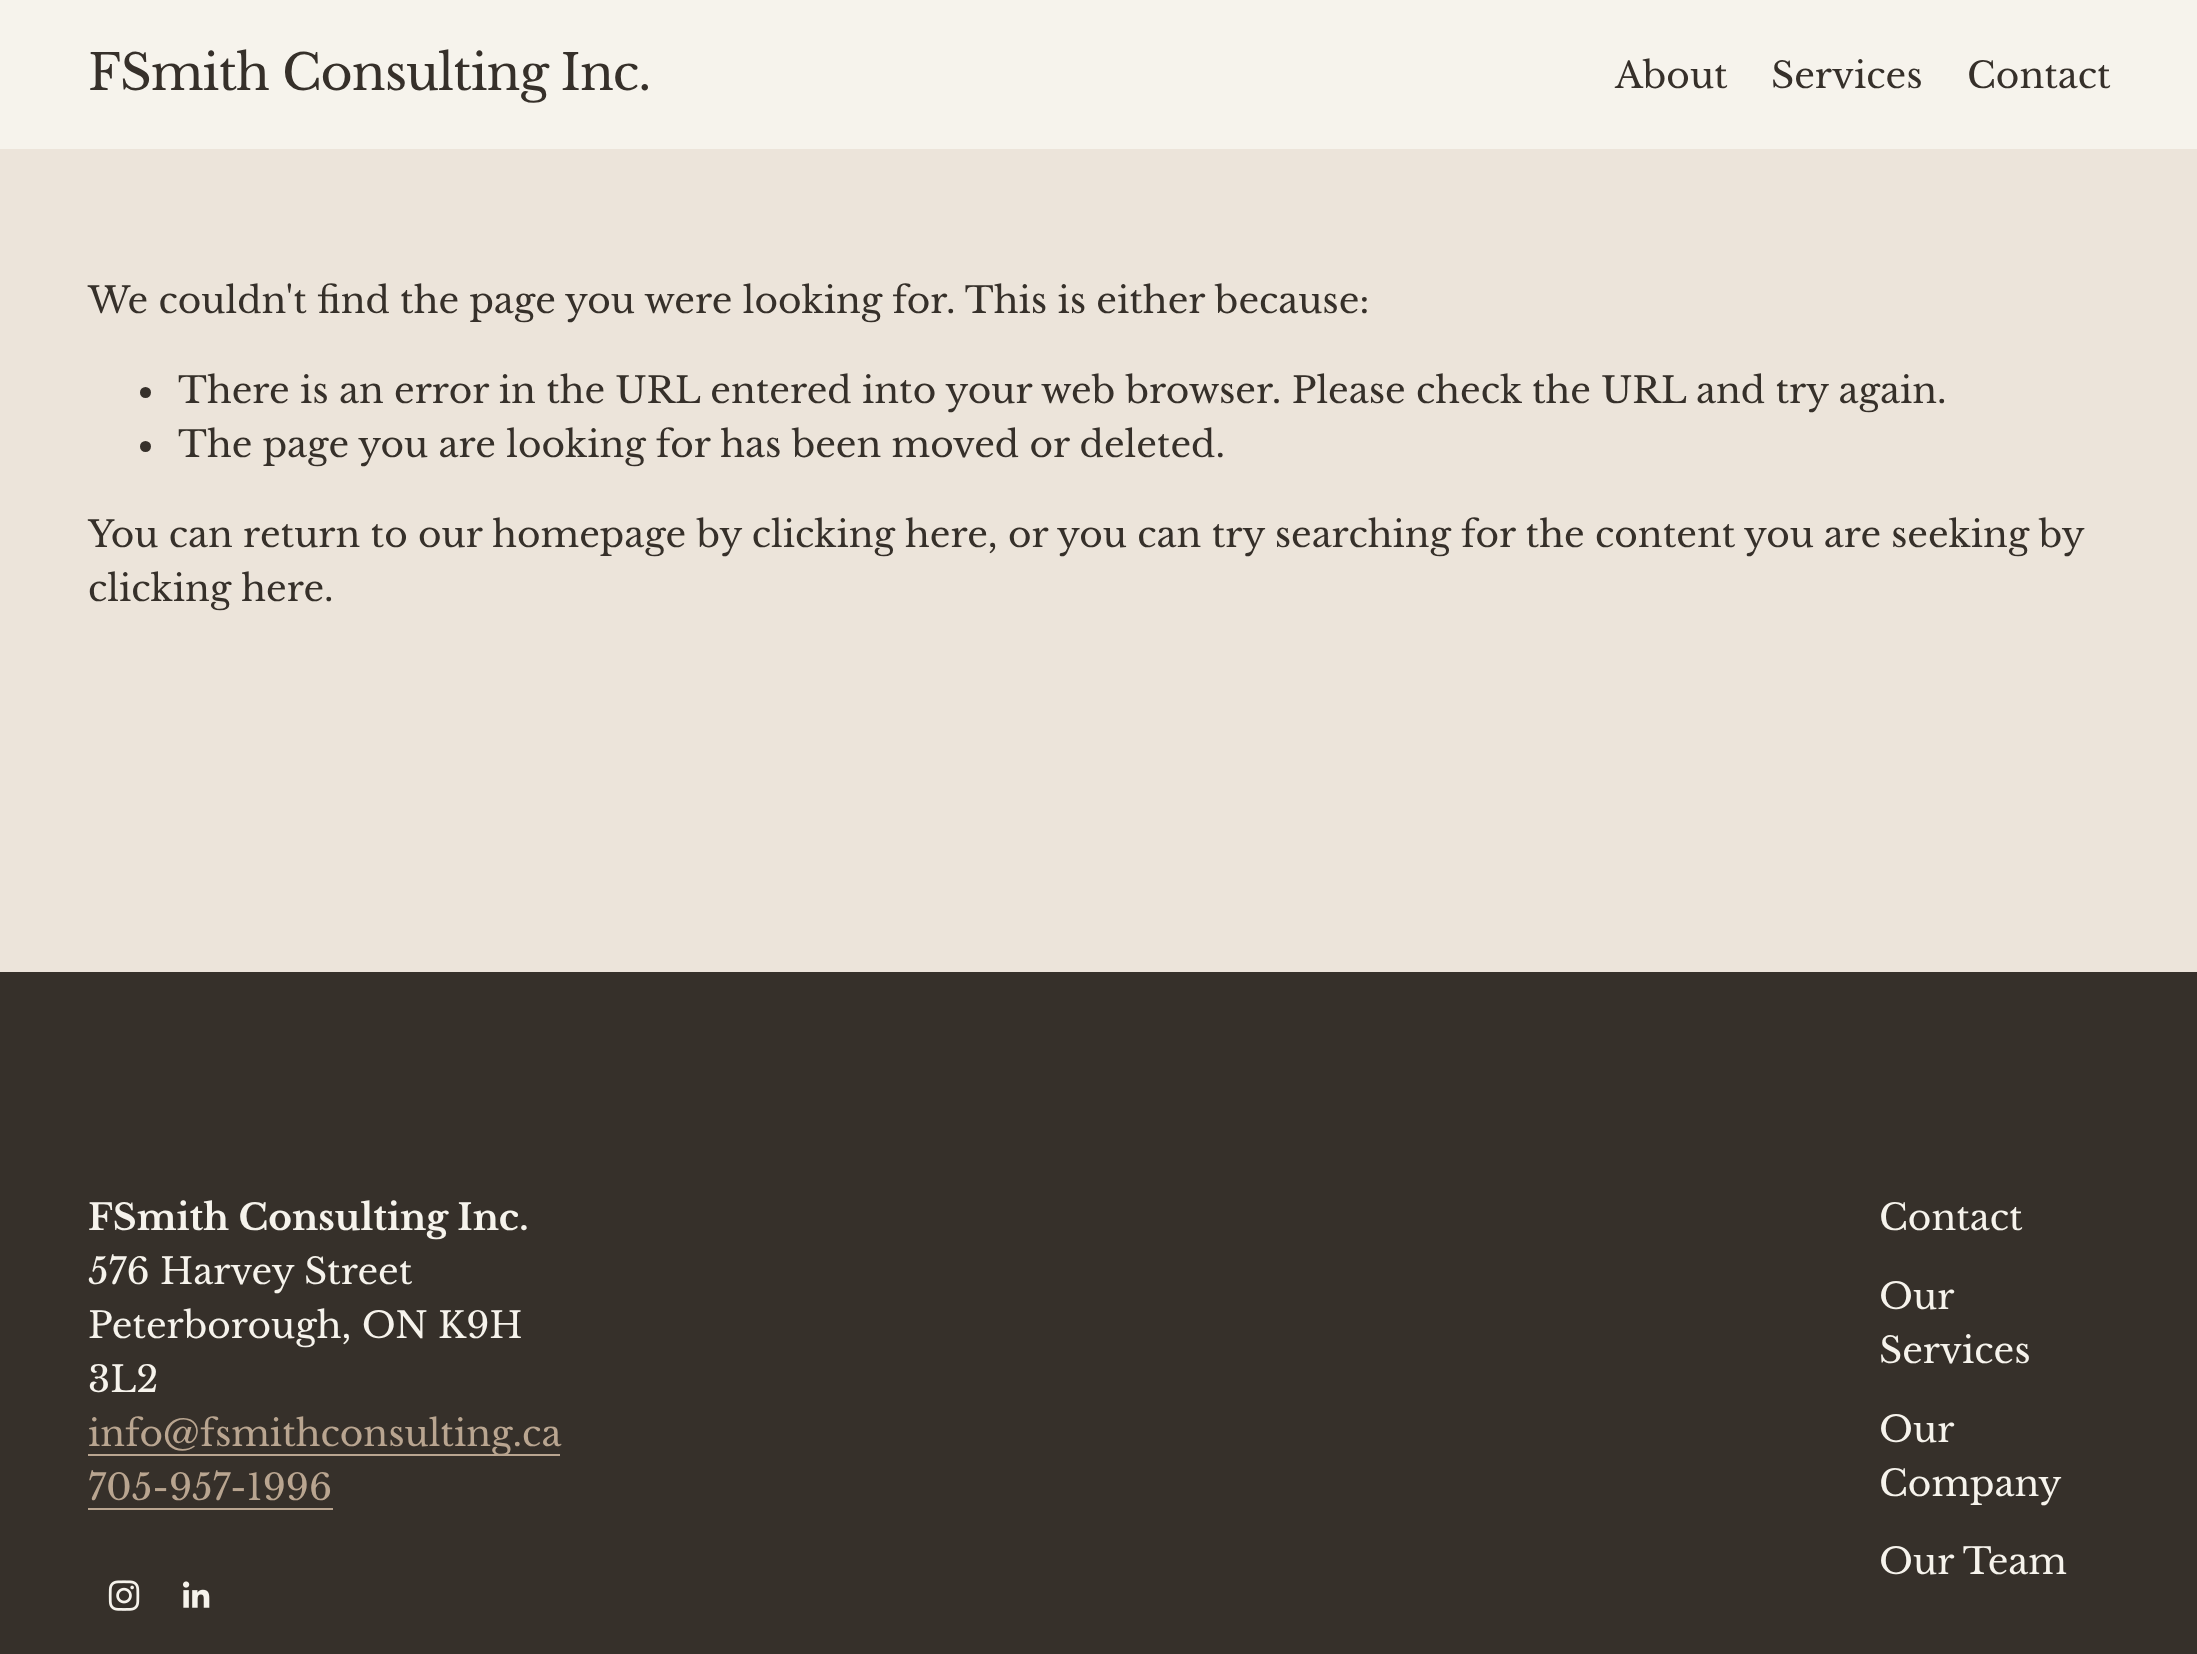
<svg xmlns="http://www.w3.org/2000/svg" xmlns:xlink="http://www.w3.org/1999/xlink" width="2197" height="1654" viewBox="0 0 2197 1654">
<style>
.cls-1{font:49.25px Libre Baskerville;letter-spacing:-1px;fill:#36302a}
.cls-2{font:36px Libre Baskerville;fill:#36302a}
.cls-3{font:bold 36px Libre Baskerville;fill:#f6f3ec}
.cls-4{font:36px Libre Baskerville;fill:#f6f3ec}
.cls-5{font:36px Libre Baskerville;fill:#b9a590}
</style>
<rect width="100%" height="100%" fill="#ece4da"/>
<rect fill="#f6f3ec" x="0" y="0" width="2197" height="149"/>
<circle fill="#36302a" cx="145.5" cy="392.5" r="5.5"/>
<circle fill="#36302a" cx="145.5" cy="446.5" r="5.5"/>
<rect fill="#36302a" x="0" y="972" width="2197" height="682"/>
<rect fill="#b9a590" x="88" y="1454" width="472" height="2"/>
<rect fill="#b9a590" x="88" y="1508" width="245" height="2"/>
<image xlink:href="image0.png" x="108" y="1580" width="32" height="31"/>
<image xlink:href="image1.png" x="183" y="1581" width="27" height="27"/>
<text class="cls-1" x="88" y="90">FSmith Consulting Inc.</text>
<text class="cls-2" x="1615" y="88">About</text>
<text class="cls-2" x="1771" y="88">Services</text>
<text class="cls-2" x="1967" y="88">Contact</text>
<text class="cls-2" x="88" y="313">We couldn't find the page you were looking for. This is either because:</text>
<text class="cls-2"><tspan x="178" y="403">There is an error in the URL entered into your web browser. Please check the URL and try again.</tspan><tspan x="178" y="457">The page you are looking for has been moved or deleted.</tspan></text>
<text class="cls-2" x="88" y="547">You can return to our homepage by clicking here, or you can try searching for the</text>
<text class="cls-2" x="1595" y="547" word-spacing="-0.5">content you are seeking by</text>
<text class="cls-2" x="88" y="601">clicking here.</text>
<text class="cls-3" x="88" y="1230">FSmith Consulting Inc.</text>
<text class="cls-4"><tspan x="88" y="1284">576 Harvey Street</tspan><tspan x="88" y="1338">Peterborough, ON K9H</tspan><tspan x="88" y="1392">3L2</tspan></text>
<text class="cls-5"><tspan x="88" y="1446">info@fsmithconsulting.ca</tspan><tspan x="88" y="1500">705-957-1996</tspan></text>
<text class="cls-4" x="1879" y="1230">Contact</text>
<text class="cls-4"><tspan x="1879" y="1309">Our</tspan><tspan x="1879" y="1363">Services</tspan></text>
<text class="cls-4"><tspan x="1879" y="1442">Our</tspan><tspan x="1879" y="1496">Company</tspan></text>
<text class="cls-4" x="1879" y="1574">Our Team</text>
</svg>
